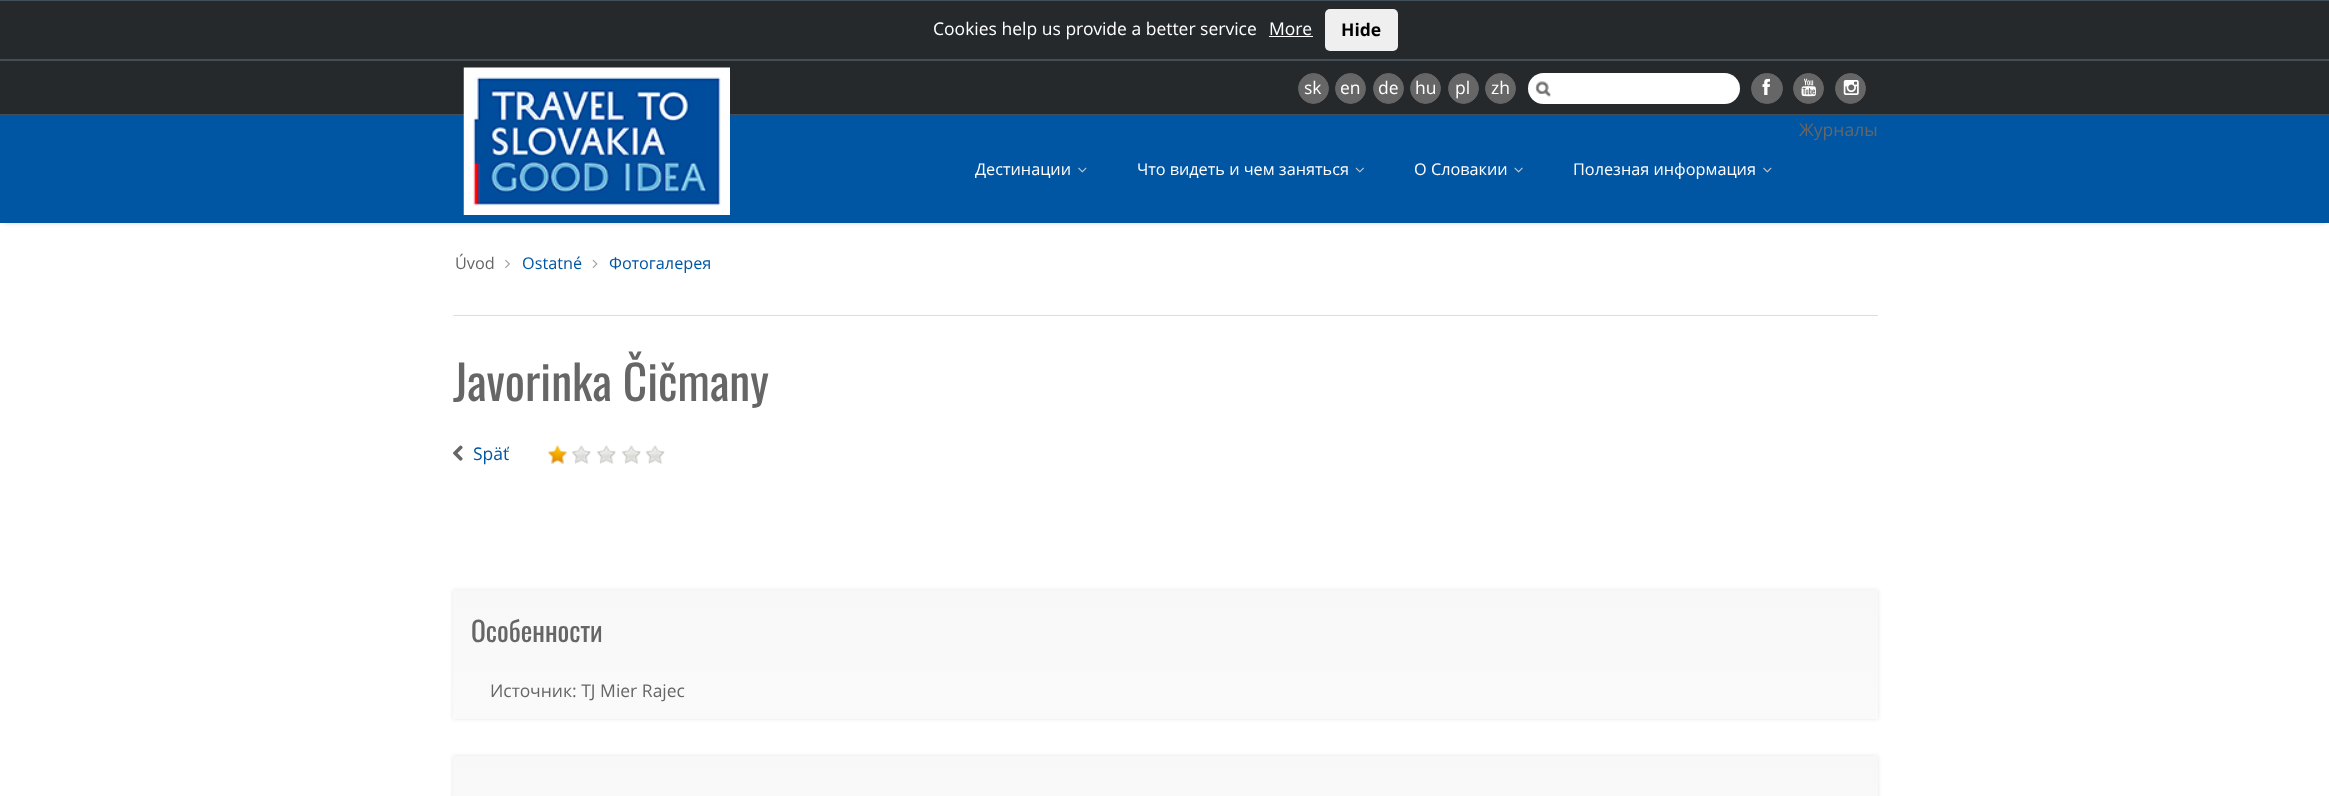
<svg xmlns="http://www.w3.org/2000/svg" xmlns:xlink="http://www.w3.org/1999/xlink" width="2329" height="796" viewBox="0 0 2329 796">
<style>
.cls-1{font:17.5px Open Sans;fill:#ffffff}
.cls-2{font:bold 17.5px Open Sans;fill:#000000}
.cls-3{font:17.5px Open Sans;fill:#666666}
.cls-4{font:16.25px Open Sans;fill:#ffffff}
.cls-5{font:16.25px Open Sans;fill:#666666}
.cls-6{font:16.25px Open Sans;fill:#0056a3}
.cls-7{font:47.5px Oswald;fill:#666666}
.cls-8{font:17.5px Open Sans;fill:#0056a3}
.cls-9{font:27.5px Oswald;fill:#666666}
</style>
<defs>
<linearGradient id="g1" gradientUnits="userSpaceOnUse" x1="1165" y1="590" x2="1165" y2="719"><stop offset="0" stop-color="#f8f8f8"/><stop offset="1" stop-color="#fafafa"/></linearGradient>
<linearGradient id="g2" gradientUnits="userSpaceOnUse" x1="1165" y1="756" x2="1165" y2="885"><stop offset="0" stop-color="#f8f8f8"/><stop offset="1" stop-color="#fafafa"/></linearGradient>
</defs>
<rect width="100%" height="100%" fill="#25292c"/>
<rect fill="#414f5a" x="0" y="0" width="2329" height="1"/>
<rect fill="#414f5a" x="0" y="59" width="2329" height="2"/>
<rect fill="#ffffff" x="1269" y="36" width="44" height="1"/>
<rect fill="#efefef" x="1325" y="9" width="73" height="42" rx="5"/>
<rect fill="#414f5a" x="0" y="114" width="2329" height="1"/>
<circle fill="#666666" stroke="#666666" cx="1313.5" cy="88.5" r="15"/>
<circle fill="#666666" stroke="#666666" cx="1350.5" cy="88.5" r="15"/>
<circle fill="#666666" stroke="#666666" cx="1388.5" cy="88.5" r="15"/>
<circle fill="#666666" stroke="#666666" cx="1425.5" cy="88.5" r="15"/>
<circle fill="#666666" stroke="#666666" cx="1463.5" cy="88.5" r="15"/>
<circle fill="#666666" stroke="#666666" cx="1500.5" cy="88.5" r="15"/>
<rect fill="#ffffff" x="1528" y="73" width="212" height="31" rx="15.5"/>
<image xlink:href="image0.png" x="1535" y="81" width="17" height="16"/>
<rect fill="#666666" stroke="#666666" x="1751.5" y="73.5" width="31" height="30" rx="15"/>
<image xlink:href="image1.png" x="1762" y="78" width="8" height="17"/>
<circle fill="#666666" stroke="#666666" cx="1808.5" cy="88.5" r="15"/>
<image xlink:href="image2.png" x="1801" y="78" width="15" height="19"/>
<circle fill="#666666" stroke="#666666" cx="1850.5" cy="88.5" r="15"/>
<image xlink:href="image3.png" x="1843" y="80" width="16" height="15"/>
<rect fill="#ffffff" x="0" y="223" width="2329" height="573"/>
<rect fill="#000000" fill-opacity="0.2" filter="blur(2px)" x="4" y="123" width="2322" height="100"/>
<rect fill="#0056a3" x="0" y="115" width="2329" height="108"/>
<image xlink:href="image4.png" x="463" y="67" width="267" height="148"/>
<image xlink:href="image5.png" x="1078" y="167" width="9" height="6"/>
<image xlink:href="image6.png" x="1355" y="167" width="9" height="6"/>
<image xlink:href="image7.png" x="1514" y="167" width="9" height="6"/>
<image xlink:href="image5.png" x="1763" y="167" width="9" height="6"/>
<image xlink:href="image8.png" x="505" y="259" width="5" height="9"/>
<image xlink:href="image9.png" x="592" y="259" width="6" height="9"/>
<rect fill="#dddddd" x="454" y="315" width="1424" height="1"/>
<circle fill="#dddddd" cx="453.5" cy="315.5" r="0.5"/>
<image xlink:href="image10.png" x="453" y="445" width="10" height="16"/>
<image xlink:href="image11.png" x="547" y="445" width="21" height="19"/>
<image xlink:href="image12.png" x="571" y="445" width="20" height="19"/>
<image xlink:href="image12.png" x="596" y="445" width="20" height="19"/>
<image xlink:href="image12.png" x="621" y="445" width="20" height="19"/>
<image xlink:href="image13.png" x="645" y="445" width="20" height="19"/>
<rect fill="#000000" fill-opacity="0.1" filter="blur(2px)" x="453" y="590" width="1425" height="129"/>
<rect fill="url(#g1)" x="453" y="590" width="1425" height="129"/>
<rect fill="#000000" fill-opacity="0.1" filter="blur(2px)" x="453" y="756" width="1425" height="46"/>
<rect fill="url(#g2)" x="453" y="756" width="1425" height="40"/>
<text class="cls-1" x="933" y="35">Cookies help us provide a better service</text>
<text class="cls-1" x="1269" y="35">More</text>
<text class="cls-2" x="1341" y="36">Hide</text>
<text class="cls-1" x="1304" y="94">sk</text>
<text class="cls-1" x="1340" y="94">en</text>
<text class="cls-1" x="1378" y="94">de</text>
<text class="cls-1" x="1415" y="94">hu</text>
<text class="cls-1" x="1455" y="94">pl</text>
<text class="cls-1" x="1491" y="94">zh</text>
<text class="cls-3" x="1799" y="136">Журналы</text>
<text class="cls-4" x="975" y="175">Дестинации</text>
<text class="cls-4" x="1137" y="175">Что видеть и чем заняться</text>
<text class="cls-4" x="1414" y="175">О Словакии</text>
<text class="cls-4" x="1573" y="175">Полезная информация</text>
<text class="cls-5" x="455" y="269">Úvod</text>
<text class="cls-6" x="522" y="269">Ostatné</text>
<text class="cls-6" x="609" y="269">Фотогалерея</text>
<text class="cls-7" x="453" y="401">Javorinka Čičmany</text>
<text class="cls-8" x="473" y="460">Späť</text>
<text class="cls-9" x="471" y="642">Особенности</text>
<text class="cls-3" x="490" y="697">Источник: TJ Mier Rajec</text>
</svg>
